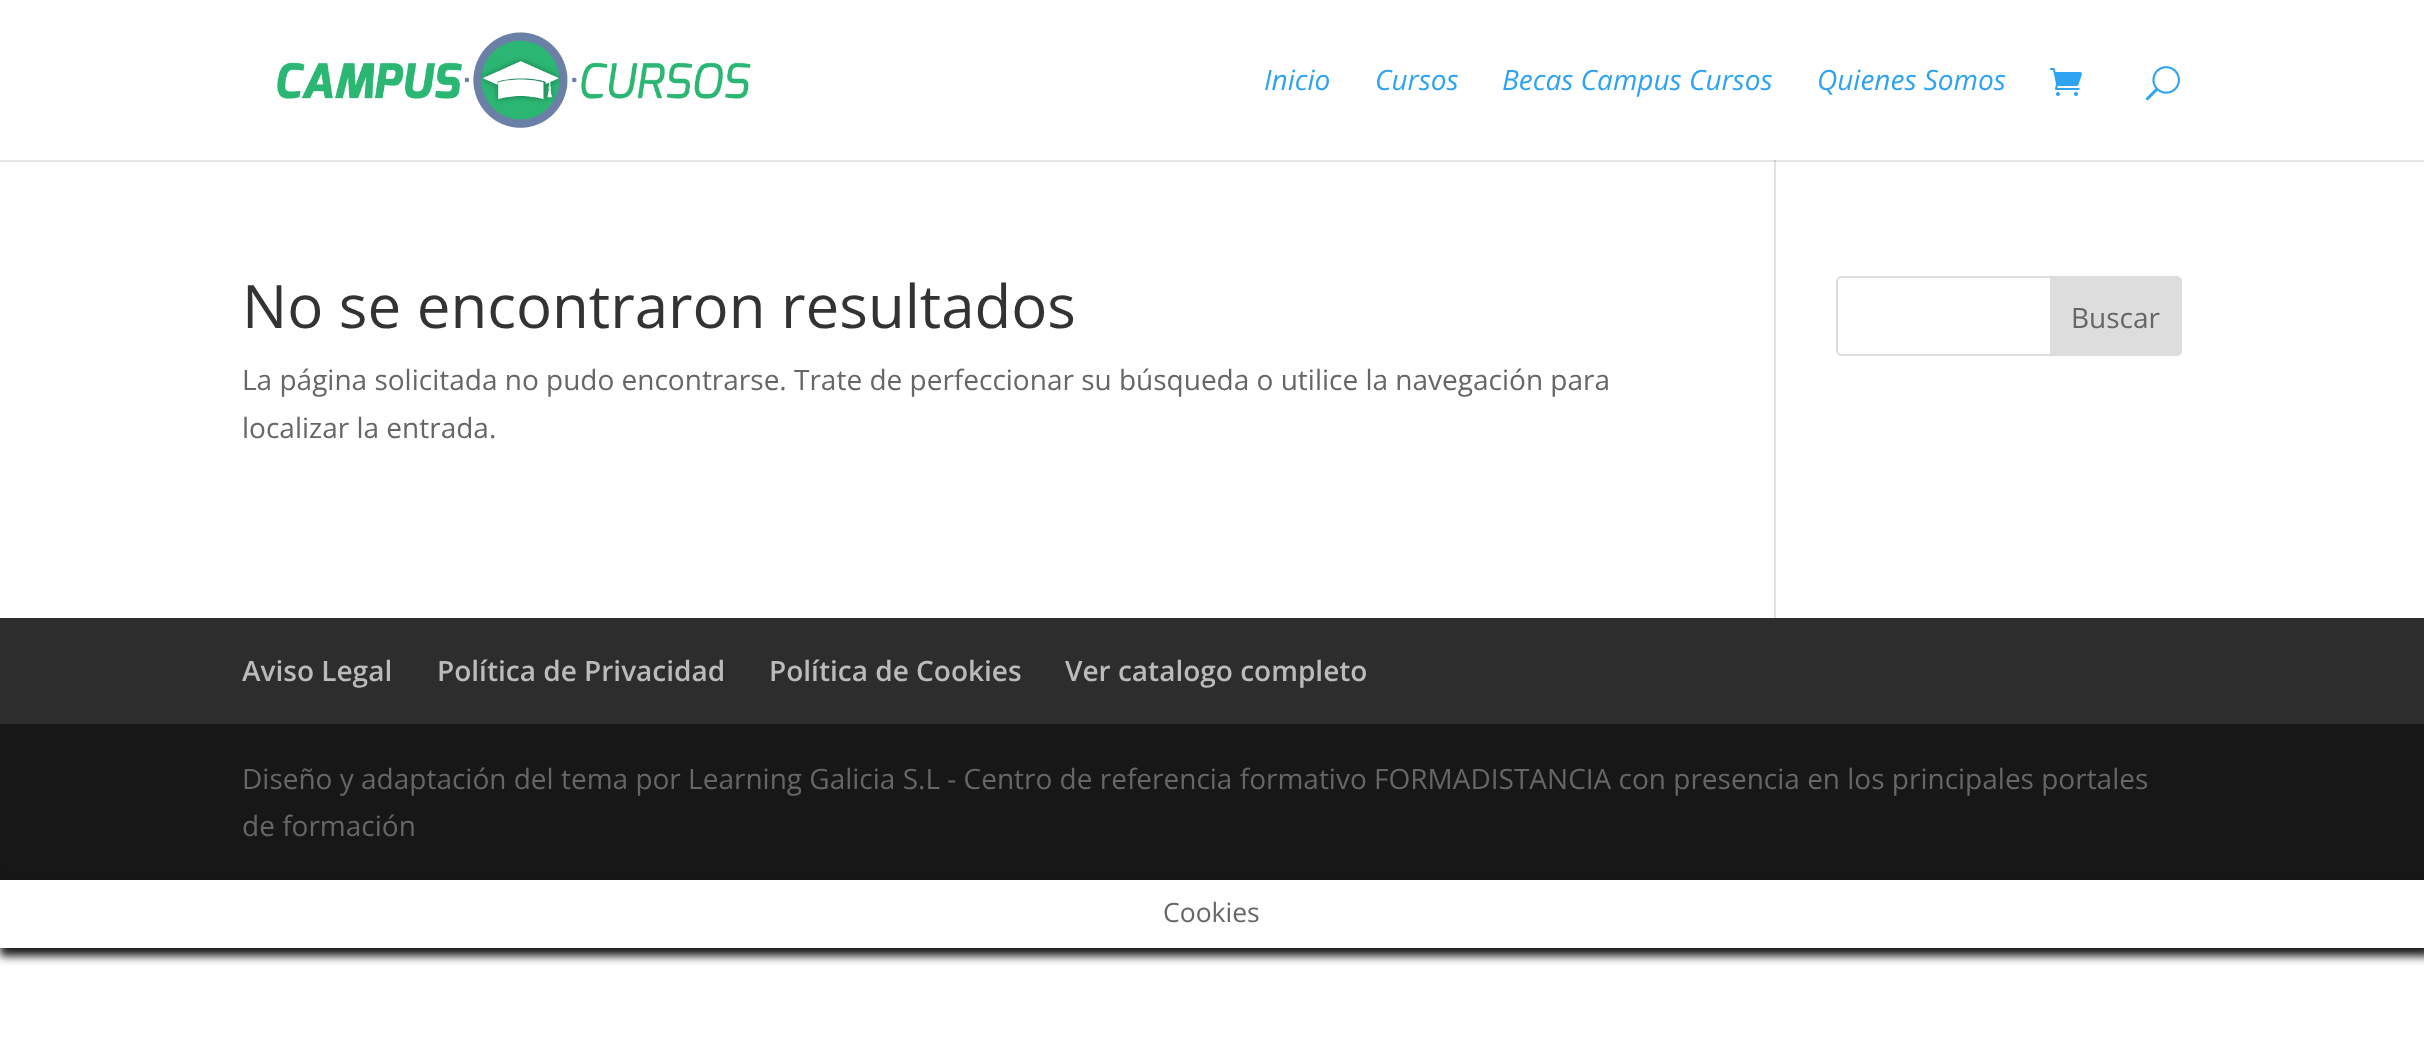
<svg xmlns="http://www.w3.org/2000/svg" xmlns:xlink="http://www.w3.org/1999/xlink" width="2424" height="1039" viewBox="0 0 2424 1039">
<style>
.cls-1{font:italic 28px Open Sans;fill:#2ea3f2}
.cls-2{font:60px Open Sans;fill:#333333}
.cls-3{font:28px Open Sans;fill:#666666}
.cls-4{font:600 28px Open Sans;fill:#bbbbbb}
.cls-5{font:26.5px Open Sans;fill:#666666}
</style>
<defs>
<clipPath id="clip1"><path d="M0 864H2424V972H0ZM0 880H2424V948H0Z" clip-rule="evenodd"/></clipPath>
</defs>
<rect width="100%" height="100%" fill="#ffffff"/>
<rect fill="#e6e6e6" x="0" y="160" width="2424" height="2"/>
<image xlink:href="image0.png" x="277" y="32" width="474" height="97"/>
<image xlink:href="image1.png" x="2050" y="68" width="32" height="28"/>
<image xlink:href="image2.png" x="2145" y="66" width="35" height="35"/>
<rect fill="#e2e2e2" x="1774" y="160" width="2" height="458"/>
<rect fill="#cbcbcb" x="1774" y="160" width="2" height="2"/>
<rect fill="none" stroke="#dddddd" stroke-width="2" x="1837" y="277" width="344" height="78" rx="5"/>
<path fill="#dddddd" stroke="#dddddd" stroke-width="2" d="M2051 277H2176C2179 277 2181 279 2181 282V350C2181 353 2179 355 2176 355H2051Z"/>
<rect fill="#2d2d2d" x="0" y="618" width="2424" height="106"/>
<rect fill="#171717" x="0" y="724" width="2424" height="156"/>
<g clip-path="url(#clip1)">
<rect fill="#161616" filter="blur(5px)" x="0" y="880" width="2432" height="76"/>
</g>
<text class="cls-1" x="1264" y="90">Inicio</text>
<text class="cls-1" x="1375" y="90">Cursos</text>
<text class="cls-1" x="1502" y="90">Becas Campus Cursos</text>
<text class="cls-1" x="1817" y="90">Quienes Somos</text>
<text class="cls-2" x="242" y="328">No se encontraron resultados</text>
<text class="cls-3"><tspan x="242" y="390">La página solicitada no pudo encontrarse. Trate de perfeccionar su búsqueda o utilice la navegación para</tspan><tspan x="242" y="438">localizar la entrada.</tspan></text>
<text class="cls-3" x="2071" y="328">Buscar</text>
<text class="cls-4" x="242" y="681">Aviso Legal</text>
<text class="cls-4" x="437" y="681">Política de Privacidad</text>
<text class="cls-4" x="769" y="681">Política de Cookies</text>
<text class="cls-4" x="1065" y="681">Ver catalogo completo</text>
<text class="cls-3"><tspan x="242" y="789">Diseño y adaptación del tema por Learning Galicia S.L - Centro de referencia formativo FORMADISTANCIA con presencia en los principales portales</tspan><tspan x="242" y="836">de formación</tspan></text>
<text class="cls-5" x="1163" y="922">Cookies</text>
</svg>
